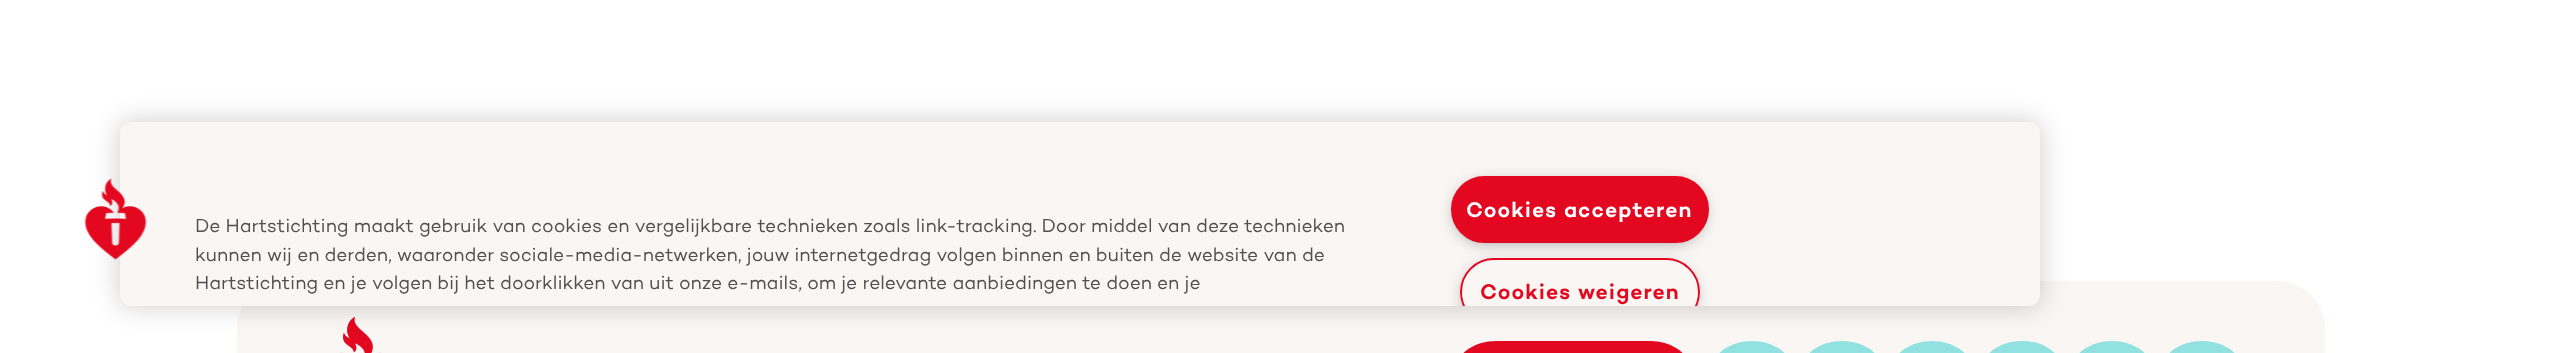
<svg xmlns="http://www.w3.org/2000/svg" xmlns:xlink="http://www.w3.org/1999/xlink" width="2560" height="353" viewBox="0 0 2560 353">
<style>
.cls-1{font:19.2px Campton;fill:#514f4f}
.cls-2{font:600 21.6px Campton;letter-spacing:1.1px;fill:#ffffff}
.cls-3{font:600 21.6px Campton;letter-spacing:1.1px;fill:#e30820}
</style>
<defs>
<clipPath id="clip1"><rect x="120" y="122" width="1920" height="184"/></clipPath>
<clipPath id="clip2"><rect x="120" y="122" width="1920" height="184"/></clipPath>
</defs>
<rect width="100%" height="100%" fill="#ffffff"/>
<rect fill="#faf6f4" x="237" y="281" width="2088" height="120" rx="48"/>
<image xlink:href="image1.png" x="340" y="317" width="41" height="36"/>
<rect fill="#e30820" stroke="#e30820" stroke-width="3" x="1458.5" y="342.5" width="229" height="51" rx="37.5"/>
<rect fill="#92e1e1" stroke="#92e1e1" stroke-width="3" x="1714.5" y="342.5" width="75" height="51" rx="37.5"/>
<rect fill="#92e1e1" stroke="#92e1e1" stroke-width="3" x="1804.5" y="342.5" width="75" height="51" rx="37.5"/>
<rect fill="#92e1e1" stroke="#92e1e1" stroke-width="3" x="1894.5" y="342.5" width="75" height="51" rx="37.5"/>
<rect fill="#92e1e1" stroke="#92e1e1" stroke-width="3" x="1984.5" y="342.5" width="75" height="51" rx="37.5"/>
<rect fill="#92e1e1" stroke="#92e1e1" stroke-width="3" x="2074.5" y="342.5" width="75" height="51" rx="37.5"/>
<rect fill="#000000" fill-opacity="0.2" filter="blur(13.5px)" x="120" y="122" width="1920" height="184" rx="11"/>
<rect fill="#faf6f4" x="120" y="122" width="1920" height="184" rx="11"/>
<image xlink:href="image0.png" x="84" y="178" width="63" height="82"/>
<rect fill="#999999" filter="blur(7.5px)" x="1455" y="183" width="249" height="59" rx="29.5"/>
<rect fill="#e30820" stroke="#e30820" stroke-width="2" x="1452" y="177" width="256" height="65" rx="32.5"/>
<g clip-path="url(#clip1)">
<rect fill="#999999" filter="blur(7.5px)" x="1464" y="266" width="231" height="58" rx="29"/>
</g>
<g clip-path="url(#clip2)">
<rect fill="#faf6f4" stroke="#e30820" stroke-width="2" x="1461" y="259" width="238" height="66" rx="33"/>
</g>
<rect fill="#92e1e1" stroke="#92e1e1" stroke-width="3" x="2164.5" y="342.5" width="75" height="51" rx="37.5"/>
<text class="cls-1"><tspan x="195" y="232">De Hartstichting maakt gebruik van cookies en vergelijkbare technieken zoals link-tracking. Door middel van deze technieken</tspan><tspan x="195" y="261">kunnen wij en derden, waaronder sociale-media-netwerken, jouw internetgedrag volgen binnen en buiten de website van de</tspan><tspan x="195" y="289">Hartstichting en je volgen bij het doorklikken van uit onze e-mails, om je relevante aanbiedingen te doen en je</tspan></text>
<text class="cls-2" x="1466" y="217">Cookies accepteren</text>
<text class="cls-3" x="1480" y="299">Cookies weigeren</text>
</svg>
